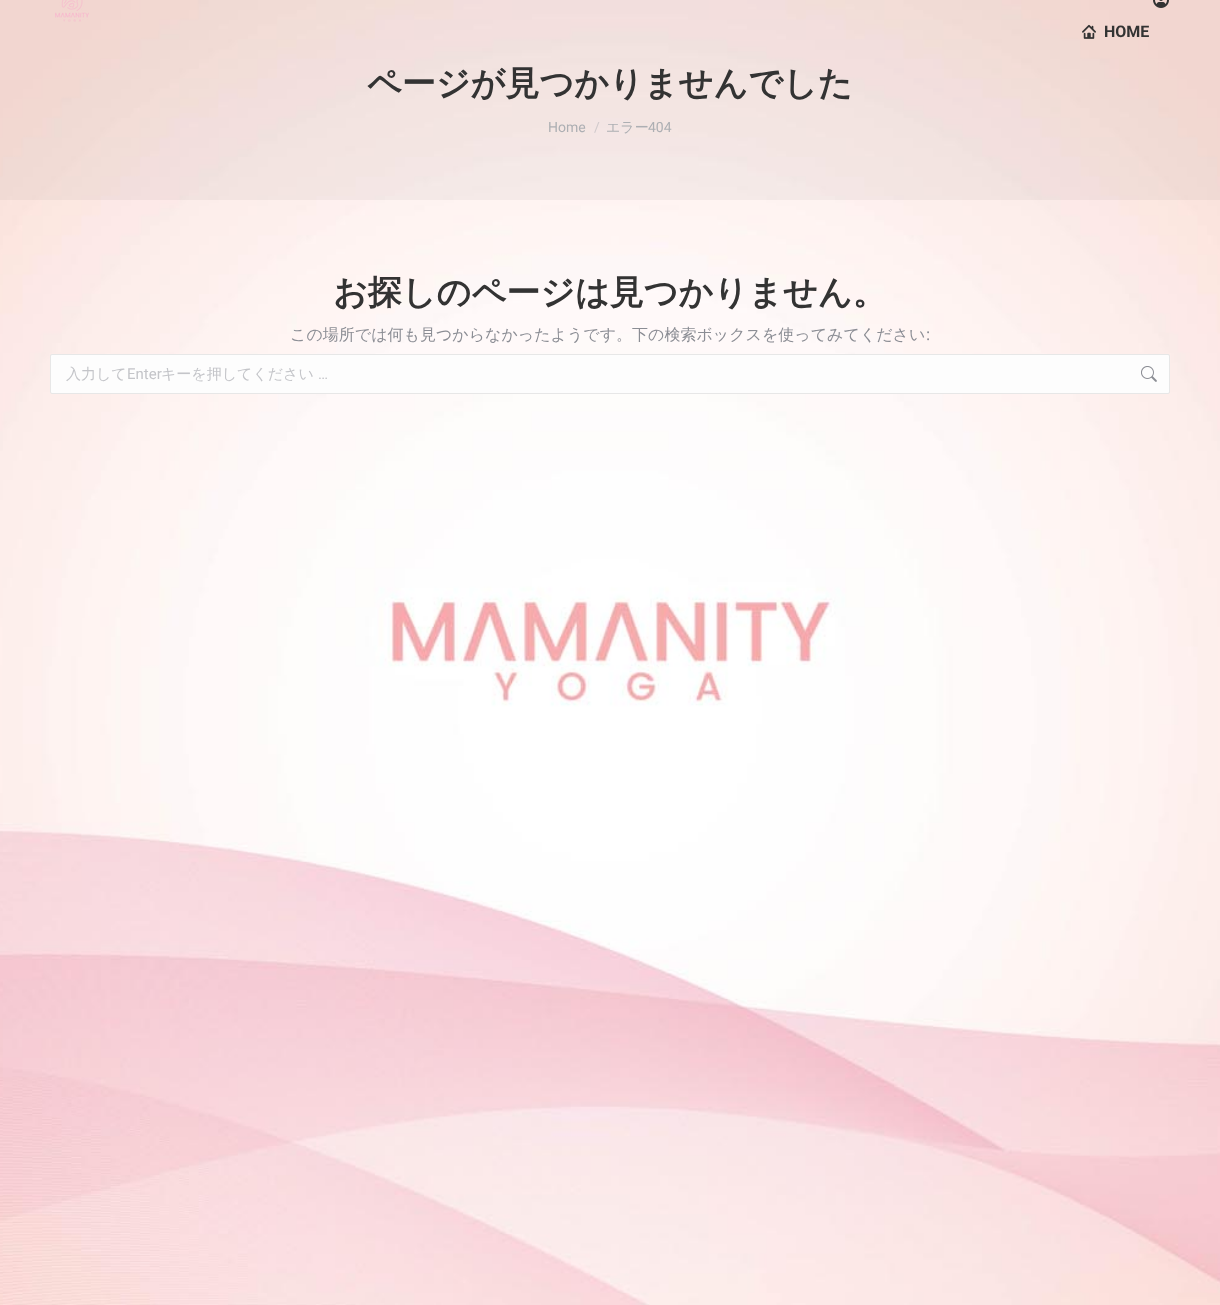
<svg xmlns="http://www.w3.org/2000/svg" xmlns:xlink="http://www.w3.org/1999/xlink" width="1220" height="1305" viewBox="0 0 1220 1305">
<style>
.cls-1{font:bold 16px Roboto;fill:#333333}
.cls-2{font:bold 34px WenQuanYi Zen Hei;fill:#333333}
.cls-3{font:14px Roboto;fill:#adafb3}
.cls-4{font:14px Roboto;fill:#d0cacc}
.cls-5{font:500 14px WenQuanYi Zen Hei;fill:#adafb3}
.cls-6{font:500 16px WenQuanYi Zen Hei;fill:#8b8d94}
.cls-7{font:16px Open Sans;fill:#8b8d94}
.cls-8{font:500 15px WenQuanYi Zen Hei;fill:#c4c5c9}
.cls-9{font:15px Roboto;fill:#c4c5c9}
</style>
<rect width="100%" height="100%" fill="#ffffff"/>
<image xlink:href="image0.png" x="0" y="0" width="1220" height="1305"/>
<rect fill="#000000" fill-opacity="0.04" x="0" y="0" width="1220" height="200"/>
<image xlink:href="image1.png" x="55" y="0" width="34" height="22"/>
<image xlink:href="image2.png" x="1153" y="0" width="16" height="8"/>
<image xlink:href="image3.png" x="1082" y="24" width="14" height="15"/>
<rect fill="#fdfdfd" stroke="#e7e7e7" x="50.5" y="354.5" width="1119" height="39" rx="1.5"/>
<image xlink:href="image4.png" x="1141" y="366" width="16" height="16"/>
<text class="cls-1" x="1104" y="37">HOME</text>
<text class="cls-2" x="367" y="95">ページが見つかりませんでした</text>
<text class="cls-3" x="548" y="132">Home</text>
<text class="cls-4" x="594" y="132">/</text>
<text class="cls-5" x="606" y="132">エラー</text>
<text class="cls-3" x="648" y="132">404</text>
<text class="cls-2" x="333" y="304">お探しのページは見つかりません。</text>
<text class="cls-6" x="290" y="340">この場所では何も見つからなかったようです。下の検索ボックスを使ってみてください</text>
<text class="cls-7" x="926" y="340">:</text>
<text class="cls-8" x="66" y="379">入力して</text>
<text class="cls-9" x="127" y="379">Enter</text>
<text class="cls-8" x="161" y="379">キーを押してください</text>
<text class="cls-9" x="318" y="379">…</text>
</svg>
